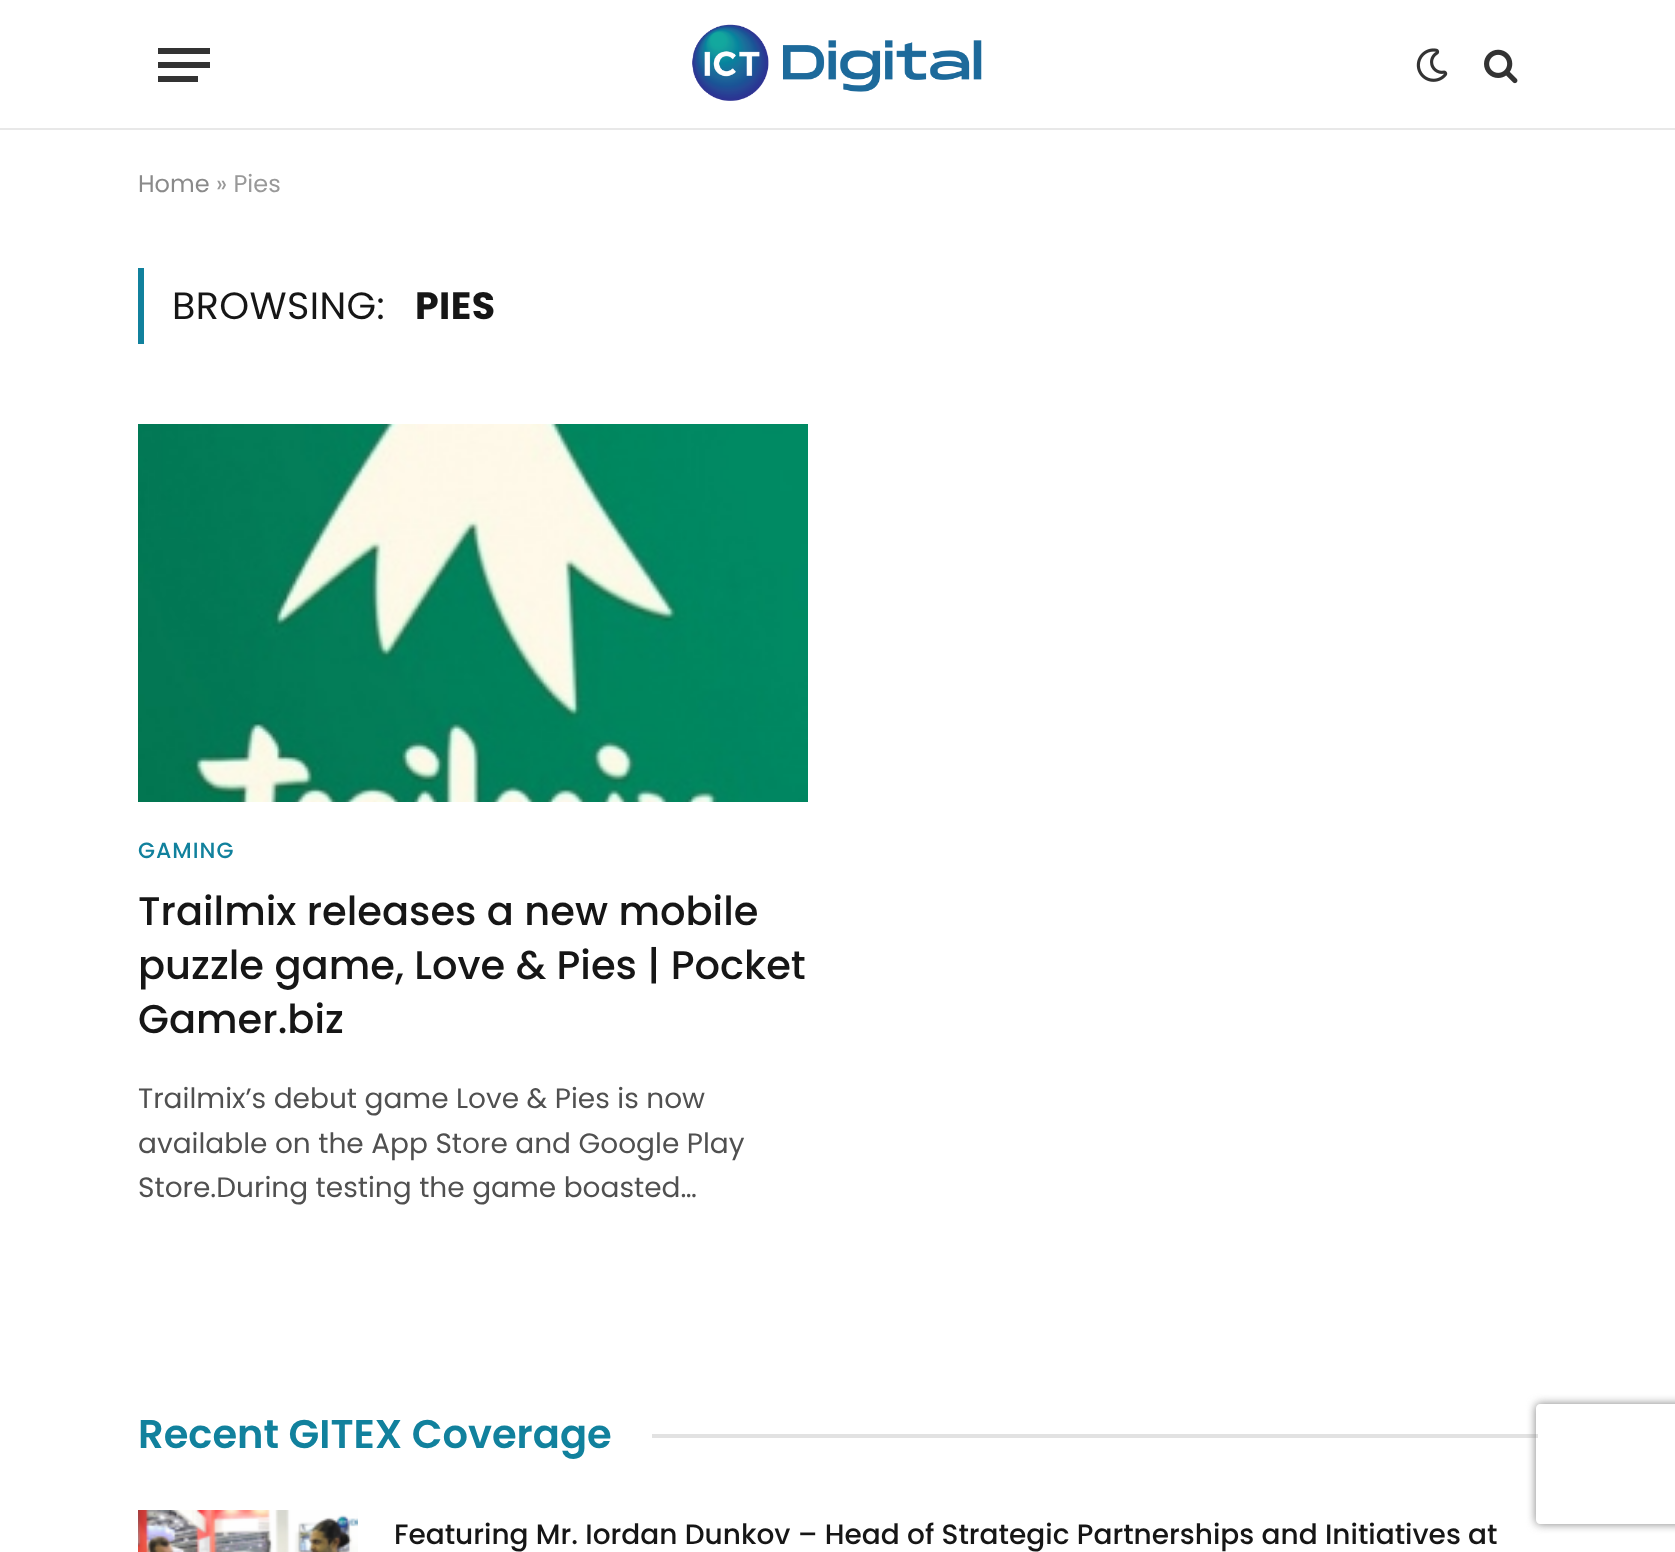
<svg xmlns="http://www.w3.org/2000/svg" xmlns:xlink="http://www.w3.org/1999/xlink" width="1675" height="1552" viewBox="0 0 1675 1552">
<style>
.cls-1{font:24px Poppins;fill:#8a8a8a}
.cls-2{font:24px Poppins;fill:#999999}
.cls-3{font:38px Poppins;letter-spacing:0.4px;fill:#161616}
.cls-4{font:bold 38px Poppins;letter-spacing:0.4px;fill:#161616}
.cls-5{font:500 22px Poppins;letter-spacing:1px;fill:#11819d}
.cls-6{font:500 40px Poppins;fill:#161616}
.cls-7{font:28px Poppins;fill:#505050}
.cls-8{font:600 40px Poppins;fill:#11819d}
.cls-9{font:500 28px Poppins;fill:#161616}
</style>
<defs>
<clipPath id="clip1"><path d="M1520 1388H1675V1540H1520ZM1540 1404H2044C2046 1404 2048 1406 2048 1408V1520C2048 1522 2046 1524 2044 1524H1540C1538 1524 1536 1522 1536 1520V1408C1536 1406 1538 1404 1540 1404Z" clip-rule="evenodd"/></clipPath>
</defs>
<rect width="100%" height="100%" fill="#ffffff"/>
<rect fill="#e8e8e8" x="0" y="128" width="1675" height="2"/>
<rect fill="#333333" x="158" y="76" width="40" height="6"/>
<rect fill="#333333" x="158" y="48" width="52" height="6"/>
<rect fill="#333333" x="158" y="62" width="52" height="6"/>
<image xlink:href="image0.png" x="692" y="24" width="290" height="77"/>
<image xlink:href="image1.png" x="1416" y="48" width="32" height="34"/>
<image xlink:href="image2.png" x="1484" y="49" width="34" height="35"/>
<rect fill="#11819d" x="138" y="268" width="6" height="76"/>
<image xlink:href="image3.png" x="138" y="424" width="670" height="378"/>
<rect fill="#e2e2e2" x="652" y="1434" width="886" height="4"/>
<image xlink:href="image4.png" x="138" y="1510" width="220" height="42"/>
<g clip-path="url(#clip1)">
<rect fill="#808080" filter="blur(5px)" x="1536" y="1404" width="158" height="120" rx="4"/>
</g>
<text class="cls-1" x="138" y="192">Home</text>
<text class="cls-2" x="216" y="192">» Pies</text>
<text class="cls-3" x="172" y="319">BROWSING:</text>
<text class="cls-4" x="415" y="319">PIES</text>
<text class="cls-5" x="138" y="858">GAMING</text>
<text class="cls-6"><tspan x="138" y="925">Trailmix releases a new mobile</tspan><tspan x="138" y="979">puzzle game, Love &amp; Pies | Pocket</tspan><tspan x="138" y="1033">Gamer.biz</tspan></text>
<text class="cls-7"><tspan x="138" y="1108">Trailmix’s debut game Love &amp; Pies is now</tspan><tspan x="138" y="1153">available on the App Store and Google Play</tspan><tspan x="138" y="1197">Store.During testing the game boasted…</tspan></text>
<text class="cls-8" x="138" y="1448">Recent GITEX Coverage</text>
<text class="cls-9" x="394" y="1544">Featuring Mr. Iordan Dunkov – Head of Strategic Partnerships and Initiatives at</text>
</svg>
